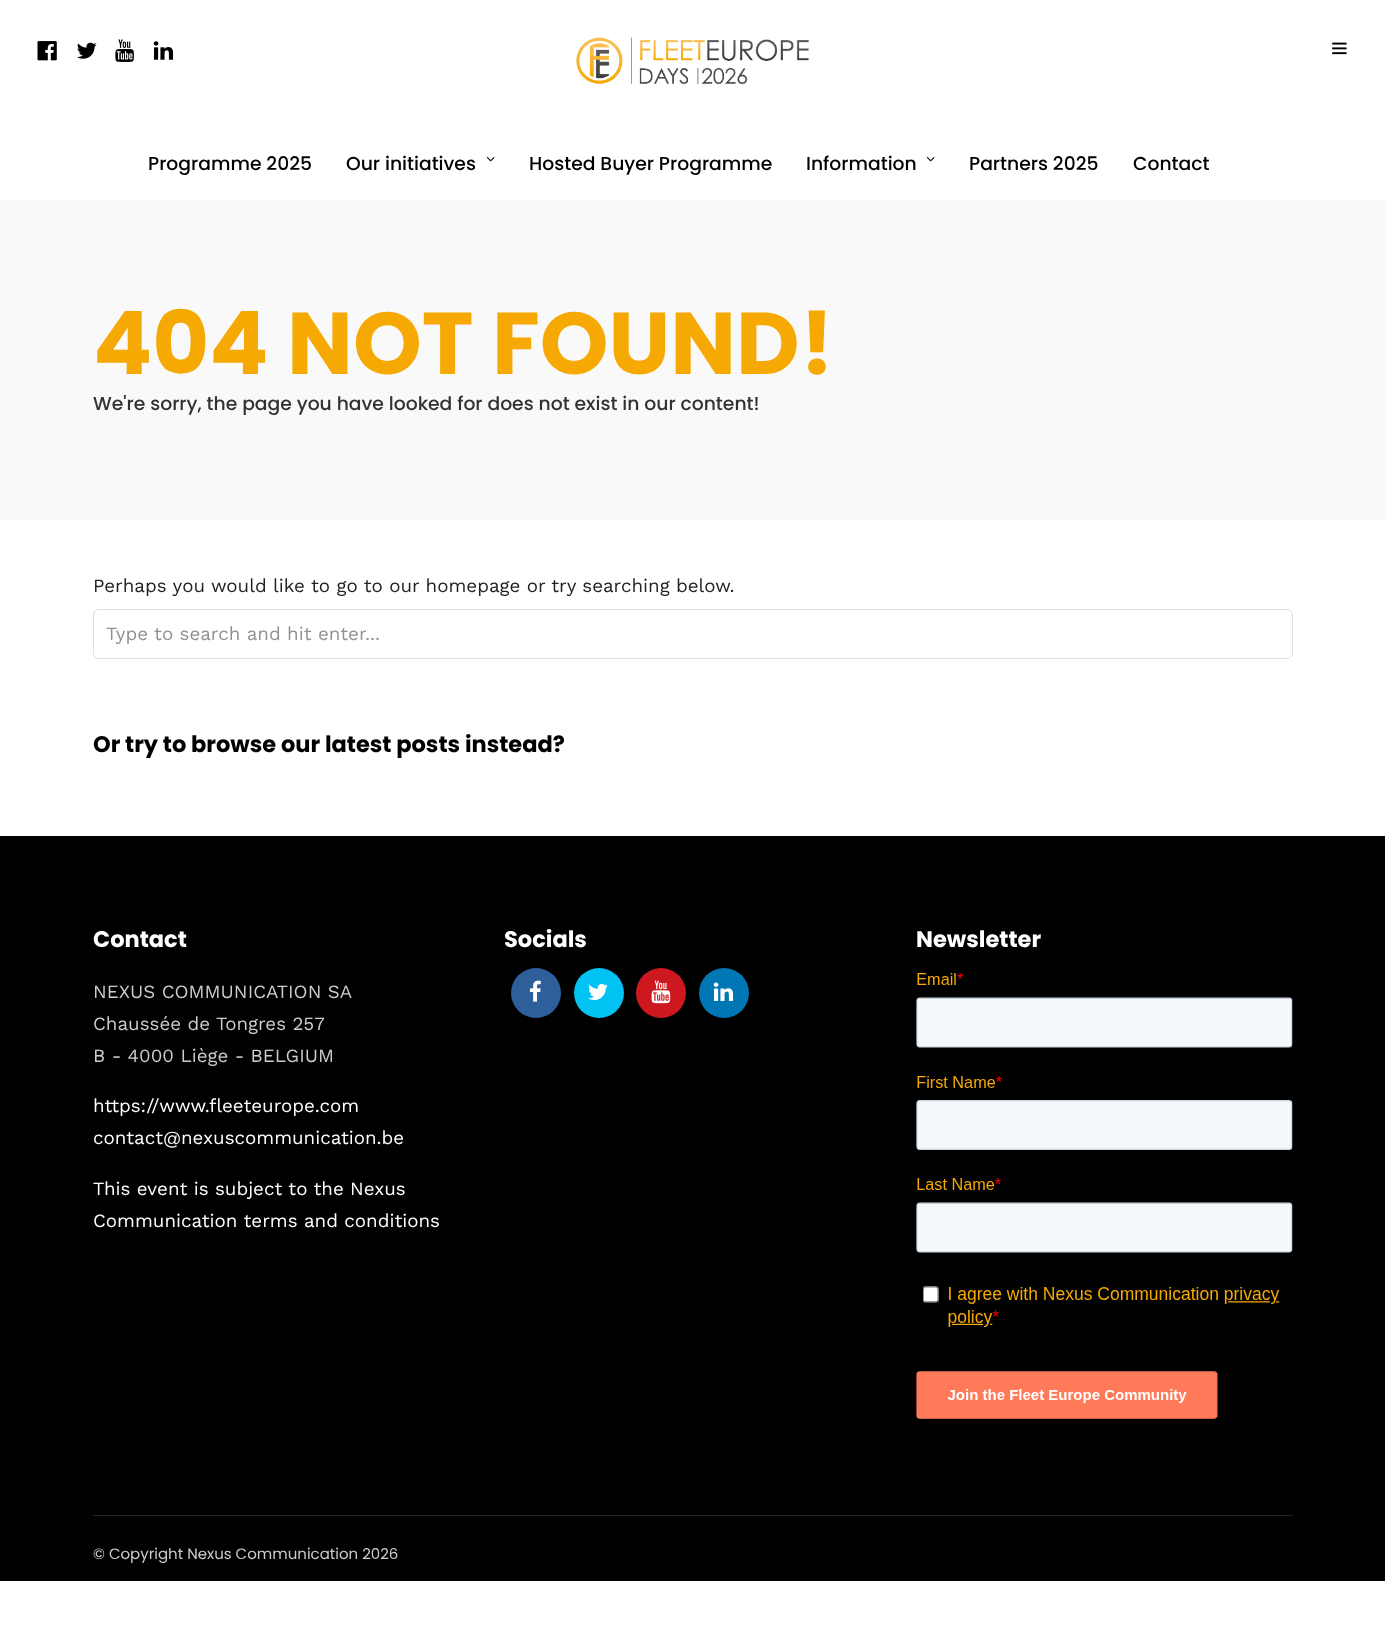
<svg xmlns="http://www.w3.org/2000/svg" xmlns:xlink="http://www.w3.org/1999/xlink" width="1385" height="1626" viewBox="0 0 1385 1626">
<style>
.cls-1{font:500 18.75px Poppins;fill:#000000}
.cls-2{font:bold 87.5px Poppins;fill:#f6a903}
.cls-3{font:500 18.75px Poppins;fill:#323232}
.cls-4{font:18.75px Work Sans;fill:#222222}
.cls-5{font:18.75px Work Sans;fill:#919191}
.cls-6{font:bold 22.5px Poppins;fill:#000000}
.cls-7{font:bold 22.5px Poppins;fill:#ffffff}
.cls-8{font:18.75px Work Sans;fill:#cccccc}
.cls-9{font:18.75px Work Sans;fill:#ffffff}
.cls-10{font:15px Poppins;fill:#cccccc}
</style>
<rect width="100%" height="100%" fill="#ffffff"/>
<image xlink:href="image0.png" x="37" y="41" width="20" height="20"/>
<image xlink:href="image1.png" x="77" y="42" width="20" height="17"/>
<image xlink:href="image2.png" x="115" y="39" width="19" height="23"/>
<image xlink:href="image3.png" x="153" y="41" width="21" height="19"/>
<image xlink:href="image4.png" x="576" y="37" width="233" height="48"/>
<image xlink:href="image5.png" x="1332" y="42" width="15" height="13"/>
<image xlink:href="image6.png" x="486" y="157" width="9" height="5"/>
<image xlink:href="image6.png" x="926" y="157" width="9" height="5"/>
<rect fill="#f9f9f9" x="0" y="200" width="1385" height="320"/>
<rect fill="none" stroke="#dce0e0" x="93.5" y="609.5" width="1199" height="49" rx="5.5"/>
<rect fill="#000000" x="0" y="836" width="1385" height="745"/>
<circle fill="#2d5f9a" cx="536" cy="993" r="25"/>
<image xlink:href="image7.png" x="529" y="980" width="12" height="22"/>
<circle fill="#00c3f3" cx="599" cy="993" r="25"/>
<image xlink:href="image8.png" x="588" y="983" width="20" height="17"/>
<circle fill="#cc181e" cx="661" cy="993" r="25"/>
<image xlink:href="image9.png" x="651" y="980" width="20" height="24"/>
<circle fill="#0077b5" cx="724" cy="993" r="25"/>
<image xlink:href="image10.png" x="713" y="982" width="21" height="19"/>
<image xlink:href="image11.png" x="916" y="973" width="377" height="446"/>
<rect fill="#222222" x="93" y="1515" width="1200" height="1"/>
<text class="cls-1" x="148" y="170">Programme 2025</text>
<text class="cls-1" x="346" y="170">Our initiatives</text>
<text class="cls-1" x="529" y="170">Hosted Buyer Programme</text>
<text class="cls-1" x="806" y="170">Information</text>
<text class="cls-1" x="969" y="170">Partners 2025</text>
<text class="cls-1" x="1133" y="170">Contact</text>
<text class="cls-2" x="93" y="374">404 NOT FOUND!</text>
<text class="cls-3" x="93" y="410">We're sorry, the page you have looked for does not exist in our content!</text>
<text class="cls-4" x="93" y="592">Perhaps you would like to go to our homepage or try searching below.</text>
<text class="cls-5" x="106" y="640">Type to search and hit enter...</text>
<text class="cls-6" x="93" y="752">Or try to browse our latest posts instead?</text>
<text class="cls-7" x="93" y="947">Contact</text>
<text class="cls-8"><tspan x="93" y="998">NEXUS COMMUNICATION SA</tspan><tspan x="93" y="1030">Chaussée de Tongres 257</tspan><tspan x="93" y="1062">B - 4000 Liège - BELGIUM</tspan></text>
<text class="cls-9"><tspan x="93" y="1112">https://www.fleeteurope.com</tspan><tspan x="93" y="1144">contact@nexuscommunication.be</tspan></text>
<text class="cls-9"><tspan x="93" y="1195">This event is subject to the Nexus</tspan><tspan x="93" y="1227">Communication terms and conditions</tspan></text>
<text class="cls-7" x="504" y="947">Socials</text>
<text class="cls-7" x="916" y="947">Newsletter</text>
<text class="cls-10" x="93" y="1559">© Copyright Nexus Communication 2026</text>
</svg>
